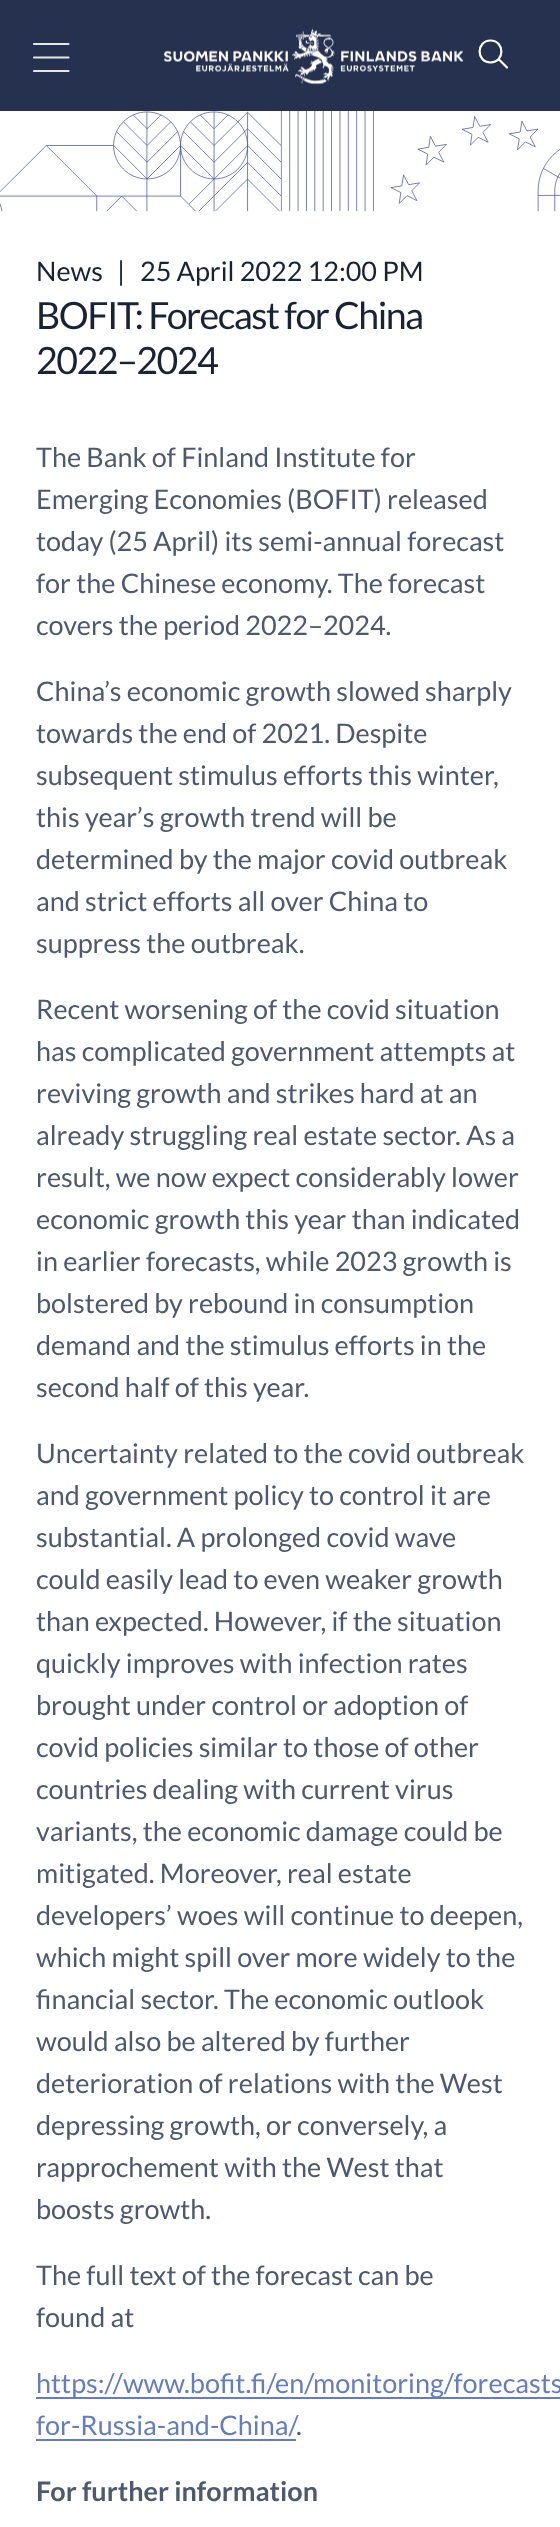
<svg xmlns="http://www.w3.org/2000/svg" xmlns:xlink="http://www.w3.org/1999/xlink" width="560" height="2527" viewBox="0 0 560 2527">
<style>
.cls-1{font:27px Lato;fill:#1a2236}
.cls-2{font:37.5px Lato;letter-spacing:-1.5px;fill:#1a2236}
.cls-3{font:27px Lato;fill:#4e586e}
.cls-4{font:27px Lato;fill:#657cbd}
.cls-5{font:bold 27px Lato;fill:#4e586e}
</style>
<rect width="100%" height="100%" fill="#ffffff"/>
<rect fill="#25314f" x="0" y="0" width="560" height="111"/>
<path fill="none" stroke="#e5e7e9" stroke-width="2.2" stroke-linecap="round" stroke-linejoin="round" d="M68.5 44H34M68.5 57.5H34M68.5 71H34"/>
<image xlink:href="image0.png" x="164" y="28" width="300" height="57"/>
<path fill="none" stroke="#ffffff" stroke-width="2.2" stroke-linecap="round" stroke-linejoin="round" d="M490.5 62.5C505 62.5 505 40.5 490.5 40.5C476 40.5 476 62.5 490.5 62.5ZM507 67.5L499.5 60"/>
<image xlink:href="image1.png" x="0" y="111" width="560" height="101"/>
<rect fill="#657cbd" x="36" y="2397" width="524" height="2"/>
<rect fill="#657cbd" x="36" y="2439" width="260" height="2"/>
<text class="cls-1" x="36" y="281">News</text>
<text class="cls-1" x="117" y="281">|</text>
<text class="cls-1" x="140" y="281">25 April 2022 12:00 PM</text>
<text class="cls-2"><tspan x="36" y="329">BOFIT: Forecast for China</tspan><tspan x="36" y="374">2022–2024</tspan></text>
<text class="cls-3"><tspan x="36" y="467">The Bank of Finland Institute for</tspan><tspan x="36" y="509">Emerging Economies (BOFIT) released</tspan><tspan x="36" y="551">today (25 April) its semi-annual forecast</tspan><tspan x="36" y="593">for the Chinese economy. The forecast</tspan><tspan x="36" y="635">covers the period 2022–2024.</tspan></text>
<text class="cls-3"><tspan x="36" y="701">China’s economic growth slowed sharply</tspan><tspan x="36" y="743">towards the end of 2021. Despite</tspan><tspan x="36" y="785">subsequent stimulus efforts this winter,</tspan><tspan x="36" y="827">this year’s growth trend will be</tspan><tspan x="36" y="869">determined by the major covid outbreak</tspan><tspan x="36" y="911">and strict efforts all over China to</tspan><tspan x="36" y="953">suppress the outbreak.</tspan></text>
<text class="cls-3"><tspan x="36" y="1019">Recent worsening of the covid situation</tspan><tspan x="36" y="1061">has complicated government attempts at</tspan><tspan x="36" y="1103">reviving growth and strikes hard at an</tspan><tspan x="36" y="1145">already struggling real estate sector. As a</tspan><tspan x="36" y="1187">result, we now expect considerably lower</tspan><tspan x="36" y="1229">economic growth this year than indicated</tspan><tspan x="36" y="1271">in earlier forecasts, while 2023 growth is</tspan><tspan x="36" y="1313">bolstered by rebound in consumption</tspan><tspan x="36" y="1355">demand and the stimulus efforts in the</tspan><tspan x="36" y="1397">second half of this year.</tspan></text>
<text class="cls-3"><tspan x="36" y="1463">Uncertainty related to the covid outbreak</tspan><tspan x="36" y="1505">and government policy to control it are</tspan><tspan x="36" y="1547">substantial. A prolonged covid wave</tspan><tspan x="36" y="1589">could easily lead to even weaker growth</tspan><tspan x="36" y="1631">than expected. However, if the situation</tspan><tspan x="36" y="1673">quickly improves with infection rates</tspan><tspan x="36" y="1715">brought under control or adoption of</tspan><tspan x="36" y="1757">covid policies similar to those of other</tspan><tspan x="36" y="1799">countries dealing with current virus</tspan><tspan x="36" y="1841">variants, the economic damage could be</tspan><tspan x="36" y="1883">mitigated. Moreover, real estate</tspan><tspan x="36" y="1925">developers’ woes will continue to deepen,</tspan><tspan x="36" y="1967">which might spill over more widely to the</tspan><tspan x="36" y="2009">financial sector. The economic outlook</tspan><tspan x="36" y="2051">would also be altered by further</tspan><tspan x="36" y="2093">deterioration of relations with the West</tspan><tspan x="36" y="2135">depressing growth, or conversely, a</tspan><tspan x="36" y="2177">rapprochement with the West that</tspan><tspan x="36" y="2219">boosts growth.</tspan></text>
<text class="cls-3"><tspan x="36" y="2285">The full text of the forecast can be</tspan><tspan x="36" y="2327">found at</tspan></text>
<text class="cls-4"><tspan x="36" y="2393">https://www.bofit.fi/en/monitoring/forecasts</tspan><tspan x="36" y="2435">for-Russia-and-China/</tspan></text>
<text class="cls-3" x="296" y="2435">.</text>
<text class="cls-5" x="36" y="2501">For further information</text>
</svg>
